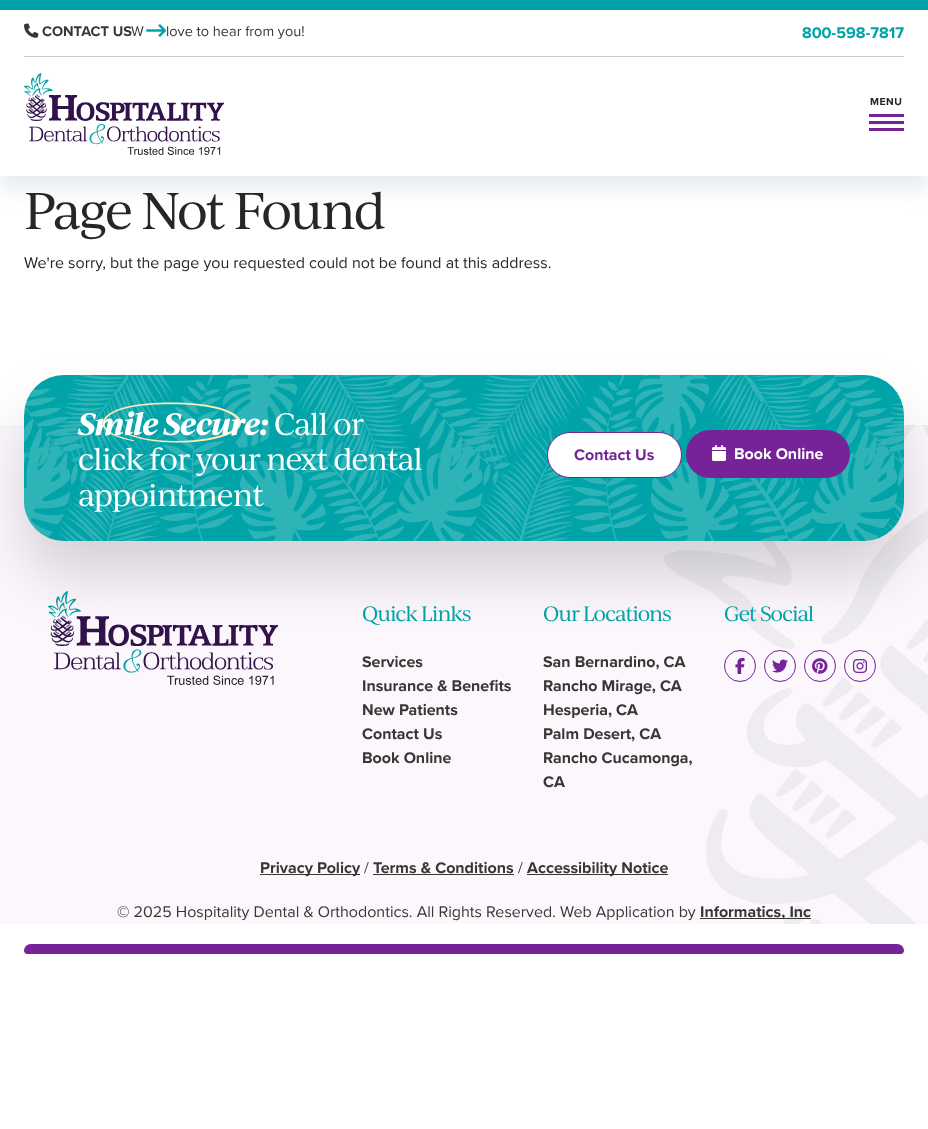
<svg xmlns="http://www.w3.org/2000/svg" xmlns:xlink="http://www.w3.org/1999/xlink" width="928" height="1129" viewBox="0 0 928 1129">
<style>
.cls-1{font:bold 14.5px Proxima Nova;fill:#383734}
.cls-2{font:14.5px Proxima Nova;fill:#383734}
.cls-3{font:bold 16px Proxima Nova;fill:#00a3a8}
.cls-4{font:bold 10.5px Proxima Nova;letter-spacing:0.5px;fill:#262626}
.cls-5{font:49.5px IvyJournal;letter-spacing:-2px;fill:#262626}
.cls-6{font:16px Proxima Nova;fill:#262626}
.cls-7{font:italic bold 29.6px IvyJournal;letter-spacing:-1px;fill:#ffffff}
.cls-8{font:29.6px IvyJournal;letter-spacing:-1px;fill:#ffffff}
.cls-9{font:bold 16px Proxima Nova;fill:#762399}
.cls-10{font:bold 16px Proxima Nova;fill:#ffffff}
.cls-11{font:20px IvyJournal;letter-spacing:-1px;fill:#00a3a8}
.cls-12{font:bold 16px Proxima Nova;fill:#383734}
.cls-13{font:16px Proxima Nova;fill:#383734}
</style>
<defs>
<clipPath id="clip1"><rect x="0" y="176" width="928" height="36"/></clipPath>
</defs>
<rect width="100%" height="100%" fill="#ffffff"/>
<g clip-path="url(#clip1)">
<rect fill="#e9ecef" filter="blur(10px)" x="0" y="15" width="928" height="176"/>
</g>
<rect fill="#00a3a8" x="0" y="0" width="928" height="10"/>
<image xlink:href="image0.png" x="24" y="23" width="15" height="15"/>
<image xlink:href="image1.png" x="146" y="24" width="20" height="13"/>
<rect fill="#cccccc" x="24" y="56" width="880" height="1"/>
<image xlink:href="image2.png" x="24" y="73" width="200" height="82"/>
<rect fill="#762399" x="869" y="114" width="35" height="3"/>
<rect fill="#762399" x="869" y="121" width="35" height="3"/>
<rect fill="#762399" x="869" y="128" width="35" height="3"/>
<rect fill="#fbf7fc" x="0" y="425" width="928" height="499"/>
<image xlink:href="image6.png" x="48" y="591" width="230" height="94"/>
<image xlink:href="image11.png" x="664" y="425" width="264" height="499"/>
<circle fill="none" stroke="#762399" cx="740" cy="666" r="15.5"/>
<image xlink:href="image7.png" x="735" y="658" width="10" height="16"/>
<circle fill="none" stroke="#762399" cx="780" cy="666" r="15.5"/>
<image xlink:href="image8.png" x="772" y="659" width="16" height="14"/>
<circle fill="none" stroke="#762399" cx="820" cy="666" r="15.5"/>
<image xlink:href="image9.png" x="812" y="658" width="16" height="16"/>
<circle fill="none" stroke="#762399" cx="860" cy="666" r="15.5"/>
<image xlink:href="image10.png" x="853" y="659" width="14" height="14"/>
<rect fill="#000000" fill-opacity="0.15" filter="blur(27.5px)" x="24" y="410" width="880" height="166" rx="40"/>
<rect fill="#00a3a8" x="24" y="375" width="880" height="166" rx="40"/>
<image xlink:href="image3.png" x="24" y="375" width="880" height="166"/>
<image xlink:href="image4.png" x="102" y="402" width="139" height="41"/>
<rect fill="#ffffff" stroke="#762399" x="547.5" y="432.5" width="134" height="45" rx="22.5"/>
<rect fill="#762399" x="686" y="430" width="164" height="48" rx="24"/>
<image xlink:href="image5.png" x="712" y="445" width="14" height="16"/>
<rect fill="#383734" x="260" y="874" width="100" height="1"/>
<rect fill="#383734" x="373" y="874" width="141" height="1"/>
<rect fill="#383734" x="527" y="874" width="141" height="1"/>
<rect fill="#383734" x="700" y="918" width="111" height="1"/>
<path fill="#762399" d="M31 944H897C901 944 904 947 904 951C904 952.5 902.5 954 901 954H27C25.5 954 24 952.5 24 951C24 947 27 944 31 944Z"/>
<text class="cls-1" x="42" y="36">CONTACT US</text>
<text class="cls-2" x="131" y="36">W</text>
<text class="cls-2" x="166" y="36">love to hear from you!</text>
<text class="cls-3" x="802" y="38">800-598-7817</text>
<text class="cls-4" x="870" y="105">MENU</text>
<text class="cls-5" x="24" y="229">Page Not Found</text>
<text class="cls-6" x="24" y="268">We're sorry, but the page you requested could not be found at this address.</text>
<text class="cls-7" x="78" y="435">Smile Secure:</text>
<text class="cls-8" x="274" y="435">Call or</text>
<text class="cls-8"><tspan x="78" y="470">click for your next dental</tspan><tspan x="78" y="506">appointment</tspan></text>
<text class="cls-9" x="574" y="460">Contact Us</text>
<text class="cls-10" x="734" y="459">Book Online</text>
<text class="cls-11" x="362" y="621">Quick Links</text>
<text class="cls-12"><tspan x="362" y="667">Services</tspan><tspan x="362" y="691">Insurance &amp; Benefits</tspan><tspan x="362" y="715">New Patients</tspan><tspan x="362" y="739">Contact Us</tspan><tspan x="362" y="763">Book Online</tspan></text>
<text class="cls-11" x="543" y="621">Our Locations</text>
<text class="cls-12"><tspan x="543" y="667">San Bernardino, CA</tspan><tspan x="543" y="691">Rancho Mirage, CA</tspan><tspan x="543" y="715">Hesperia, CA</tspan><tspan x="543" y="739">Palm Desert, CA</tspan><tspan x="543" y="763">Rancho Cucamonga,</tspan><tspan x="543" y="787">CA</tspan></text>
<text class="cls-11" x="724" y="621">Get Social</text>
<text class="cls-12" x="260" y="873">Privacy Policy</text>
<text class="cls-13" x="364" y="873">/</text>
<text class="cls-12" x="373" y="873">Terms &amp; Conditions</text>
<text class="cls-13" x="518" y="873">/</text>
<text class="cls-12" x="527" y="873">Accessibility Notice</text>
<text class="cls-13" x="117" y="917">© 2025 Hospitality Dental &amp; Orthodontics. All Rights Reserved. Web Application by</text>
<text class="cls-12" x="700" y="917">Informatics, Inc</text>
</svg>
